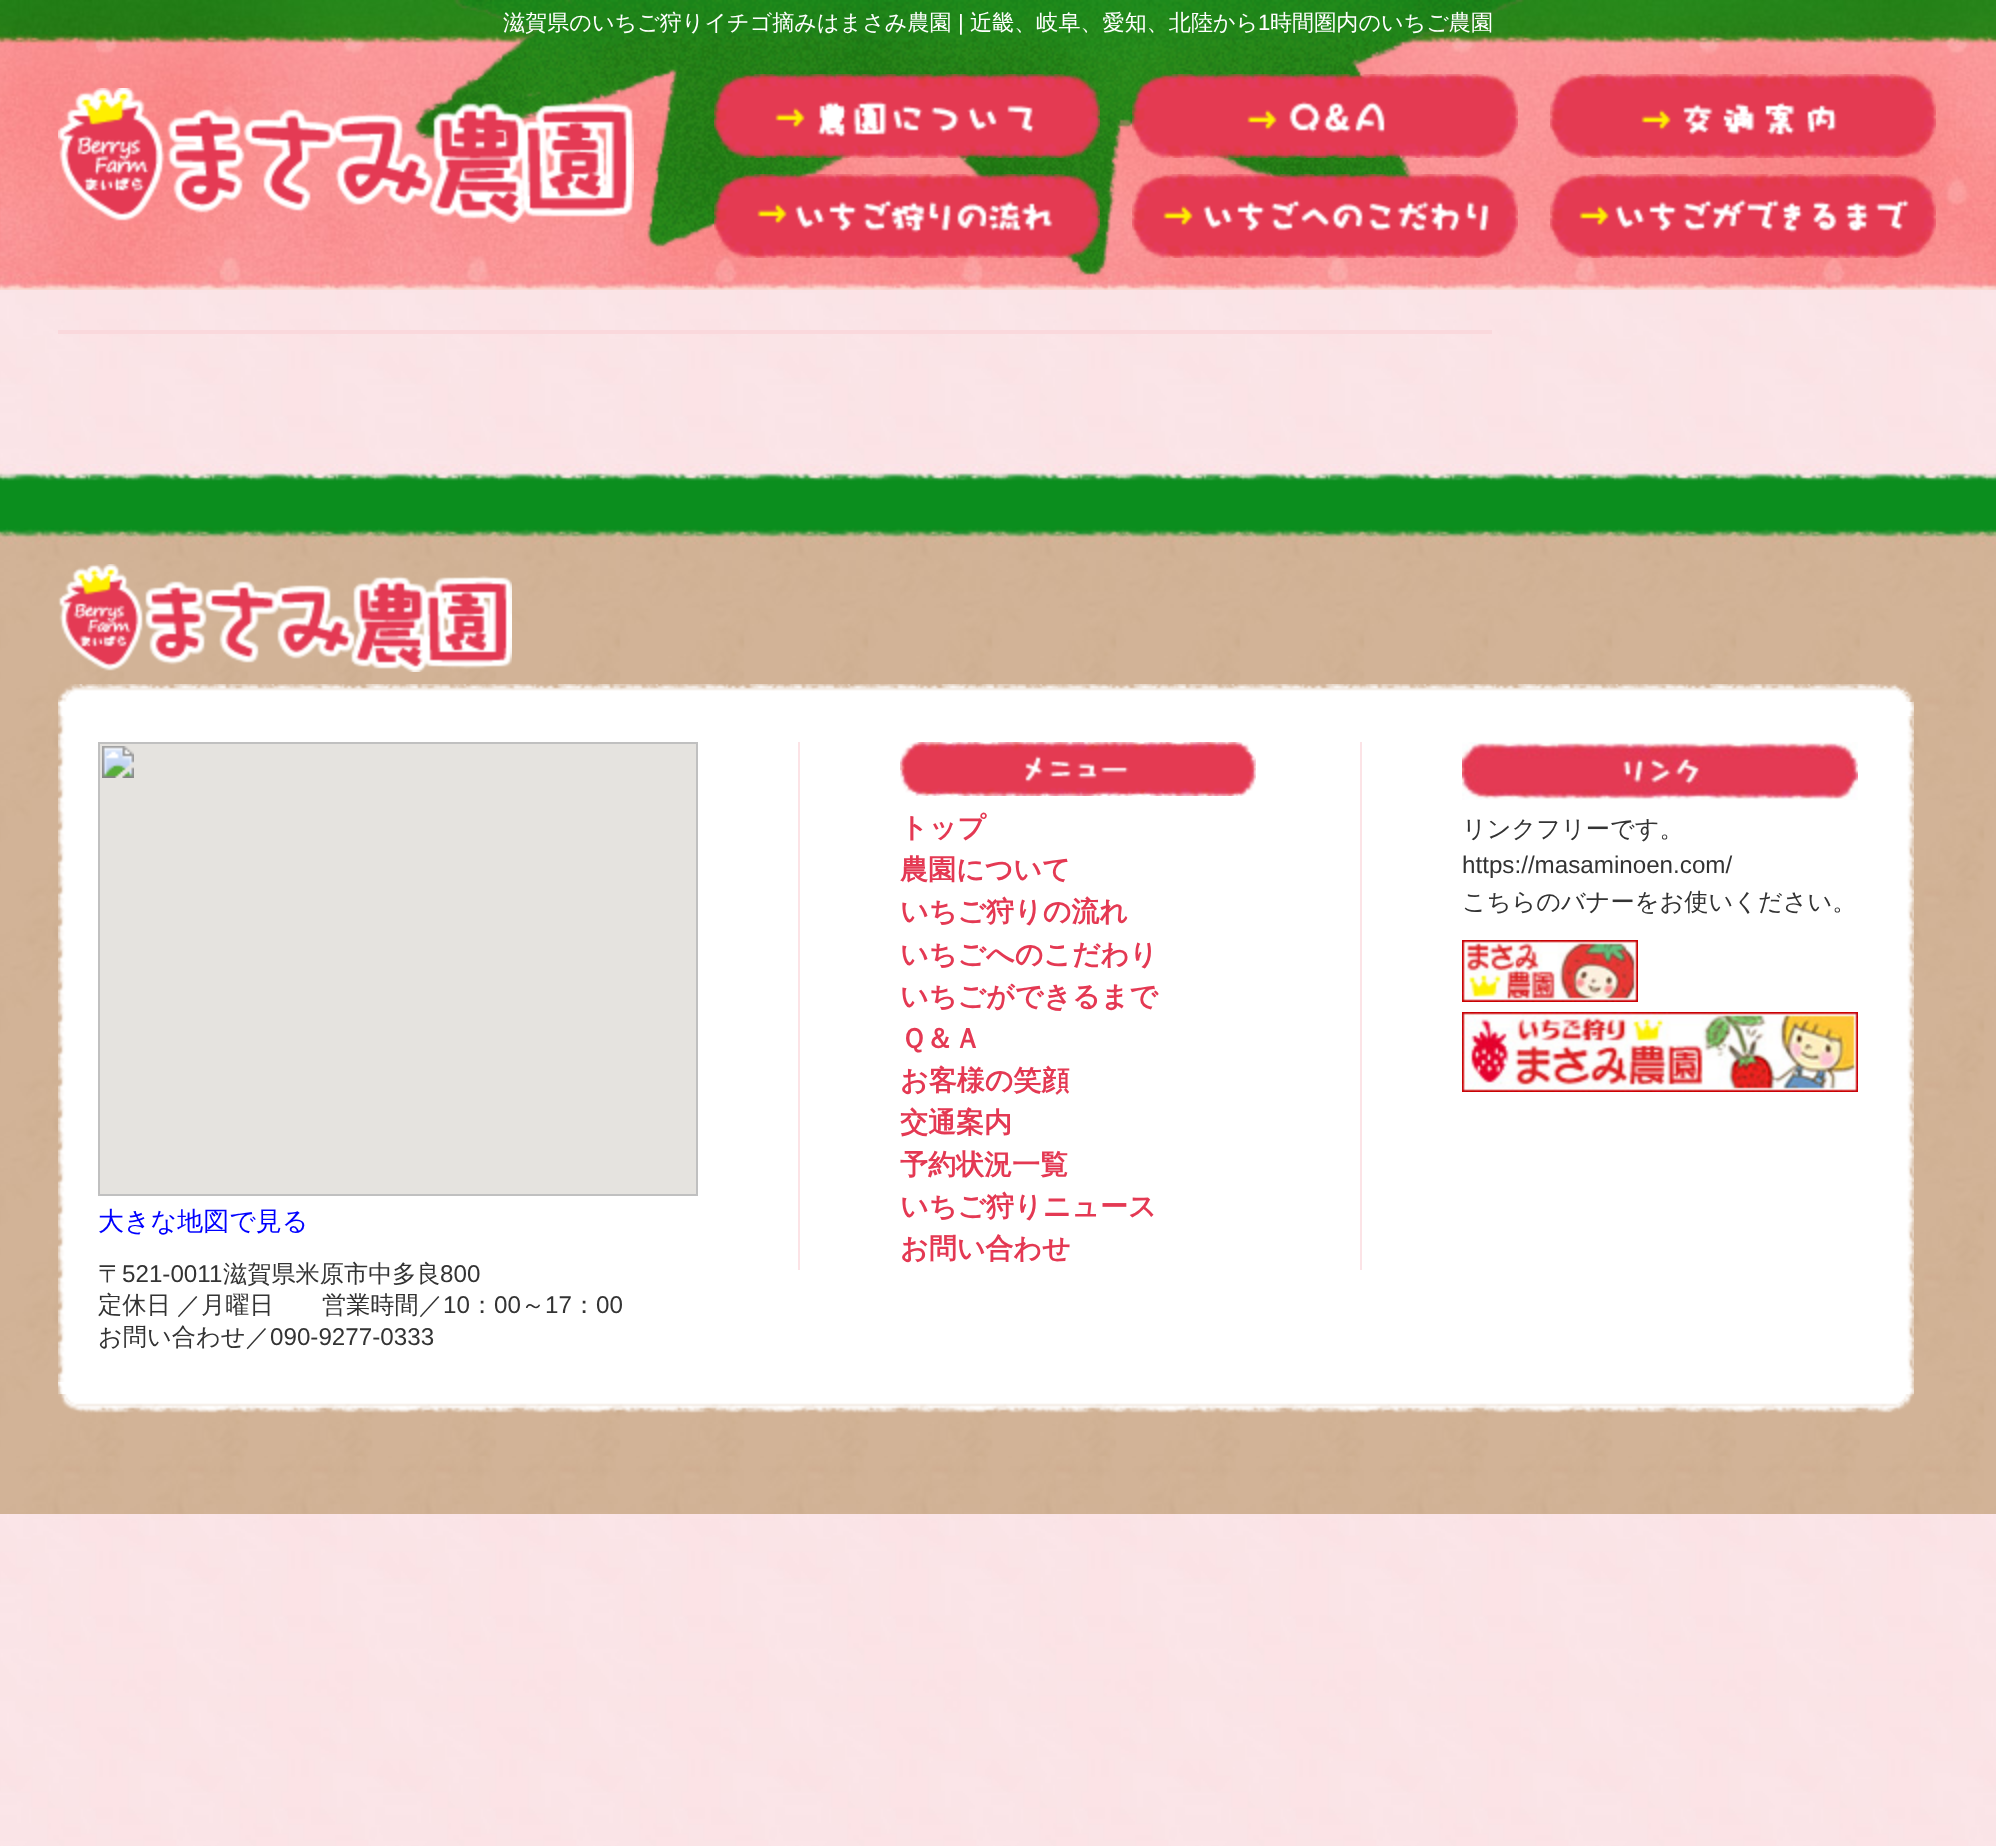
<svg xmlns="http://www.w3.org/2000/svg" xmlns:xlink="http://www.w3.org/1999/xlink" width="1996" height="1846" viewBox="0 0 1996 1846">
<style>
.cls-1{font:500 22.1px WenQuanYi Zen Hei;fill:#ffffff}
.cls-2{font:22.1px Liberation Sans;fill:#ffffff}
.cls-3{font:bold 28px WenQuanYi Zen Hei;fill:#e43953}
.cls-4{font:500 24.2px WenQuanYi Zen Hei;fill:#333333}
.cls-5{font:24.2px Liberation Sans;fill:#333333}
.cls-6{font:500 26px WenQuanYi Zen Hei;fill:#0000ff}
</style>
<rect width="100%" height="100%" fill="#ffffff"/>
<image xlink:href="image0.png" x="0" y="290" width="1996" height="1556"/>
<image xlink:href="image1.png" x="0" y="0" width="1996" height="290"/>
<image xlink:href="image2.png" x="413" y="0" width="1111" height="277"/>
<image xlink:href="image3.png" x="58" y="88" width="576" height="136"/>
<image xlink:href="image4.png" x="714" y="74" width="386" height="84"/>
<image xlink:href="image5.png" x="1132" y="74" width="386" height="84"/>
<image xlink:href="image6.png" x="1550" y="74" width="386" height="84"/>
<image xlink:href="image7.png" x="714" y="174" width="386" height="84"/>
<image xlink:href="image8.png" x="1132" y="174" width="386" height="84"/>
<image xlink:href="image9.png" x="1550" y="174" width="386" height="84"/>
<rect fill="#fad8dc" x="58" y="330" width="1434" height="4"/>
<image xlink:href="image10.png" x="0" y="464" width="1996" height="1050"/>
<image xlink:href="image11.png" x="58" y="564" width="454" height="108"/>
<image xlink:href="image13.png" x="58" y="702" width="1856" height="692"/>
<image xlink:href="image12.png" x="58" y="684" width="1856" height="32"/>
<rect fill="#fce3e6" x="1360" y="742" width="2" height="528"/>
<rect fill="#fce3e6" x="798" y="742" width="2" height="528"/>
<image xlink:href="image14.png" x="900" y="742" width="356" height="54"/>
<image xlink:href="image15.png" x="1462" y="742" width="396" height="58"/>
<image xlink:href="image16.png" x="1462" y="940" width="176" height="62"/>
<image xlink:href="image17.png" x="1462" y="1012" width="396" height="80"/>
<image xlink:href="image18.png" x="98" y="742" width="600" height="454"/>
<image xlink:href="image19.png" x="58" y="1382" width="1856" height="31"/>
<text class="cls-1" x="503" y="30">滋賀県のいちご狩りイチゴ摘みはまさみ農園</text>
<text class="cls-2" x="958" y="30">|</text>
<text class="cls-1" x="970" y="30">近畿、岐阜、愛知、北陸から</text>
<text class="cls-2" x="1258" y="30">1</text>
<text class="cls-1" x="1270" y="30">時間圏内のいちご農園</text>
<text class="cls-3"><tspan x="900" y="837">トップ</tspan><tspan x="900" y="879">農園について</tspan><tspan x="900" y="921">いちご狩りの流れ</tspan><tspan x="900" y="964">いちごへのこだわり</tspan><tspan x="900" y="1006">いちごができるまで</tspan><tspan x="900" y="1048">Ｑ＆Ａ</tspan><tspan x="900" y="1090">お客様の笑顔</tspan><tspan x="900" y="1132">交通案内</tspan><tspan x="900" y="1174">予約状況一覧</tspan><tspan x="900" y="1216">いちご狩りニュース</tspan><tspan x="900" y="1258">お問い合わせ</tspan></text>
<text class="cls-4" x="1462" y="837">リンクフリーです。</text>
<text class="cls-5" x="1462" y="873">https://masaminoen.com/</text>
<text class="cls-4" x="1462" y="910">こちらのバナーをお使いください。</text>
<text class="cls-6" x="98" y="1230">大きな地図で見る</text>
<text class="cls-4" x="98" y="1282">〒</text>
<text class="cls-5" x="122" y="1282">521-0011</text>
<text class="cls-4" x="223" y="1282">滋賀県米原市中多良</text>
<text class="cls-5" x="440" y="1282">800</text>
<text class="cls-4" x="98" y="1313" word-spacing="-1">定休日 ／月曜日　　営業時間／</text>
<text class="cls-5" x="443" y="1313">10</text>
<text class="cls-4" x="470" y="1313">：</text>
<text class="cls-5" x="494" y="1313">00</text>
<text class="cls-4" x="521" y="1313">～</text>
<text class="cls-5" x="545" y="1313">17</text>
<text class="cls-4" x="572" y="1313">：</text>
<text class="cls-5" x="596" y="1313">00</text>
<text class="cls-4" x="98" y="1345">お問い合わせ／</text>
<text class="cls-5" x="270" y="1345">090-9277-0333</text>
</svg>
